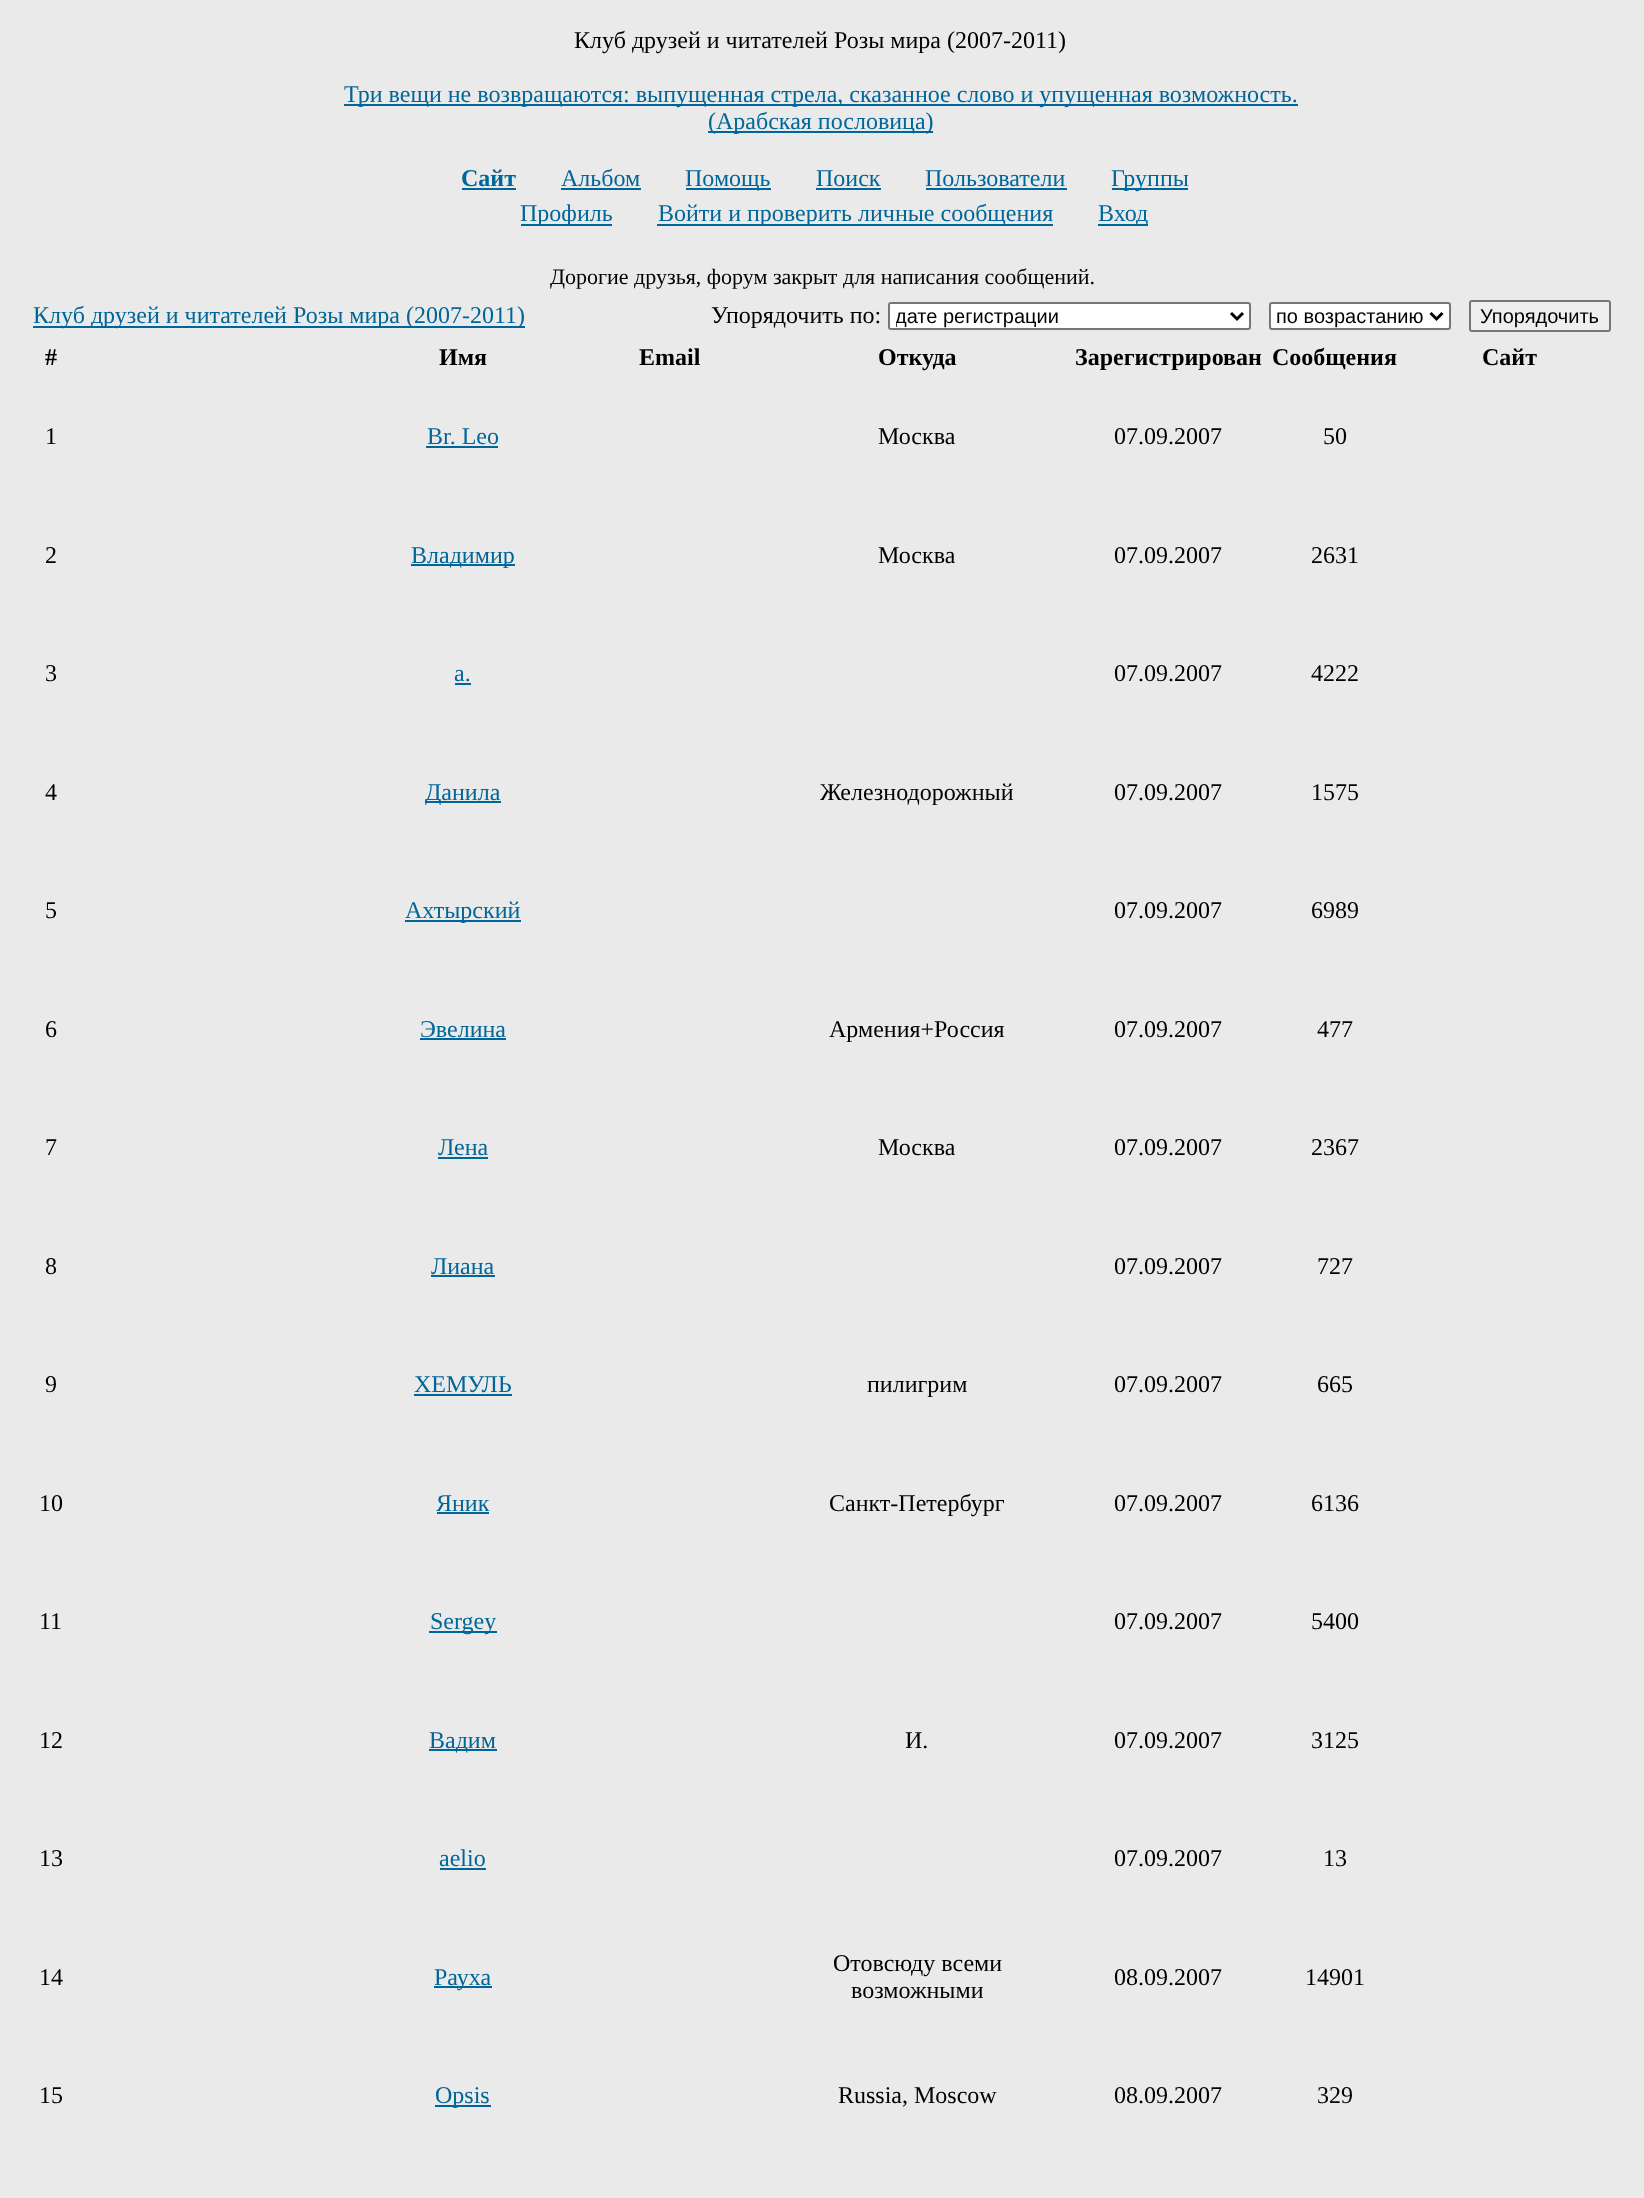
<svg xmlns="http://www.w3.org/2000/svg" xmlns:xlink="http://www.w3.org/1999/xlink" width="1644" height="2198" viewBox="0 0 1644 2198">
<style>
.cls-1{font:24px Liberation Serif;fill:#000000}
.cls-2{font:24px Liberation Serif;fill:#006699}
.cls-3{font:bold 24px Liberation Serif;fill:#006699}
.cls-4{font:22px Liberation Serif;fill:#000000}
.cls-5{font:20px Liberation Sans;fill:#000000}
.cls-6{font:bold 24px Liberation Serif;fill:#000000}
</style>
<defs>
<clipPath id="clip1"><rect x="896" y="303" width="330" height="26"/></clipPath>
</defs>
<rect width="100%" height="100%" fill="#eaeaea"/>
<rect fill="#006699" x="344" y="104" width="954" height="2"/>
<rect fill="#006699" x="708" y="131" width="225" height="2"/>
<rect fill="#006699" x="462" y="188" width="54" height="2"/>
<rect fill="#006699" x="561" y="188" width="80" height="2"/>
<rect fill="#006699" x="686" y="188" width="85" height="2"/>
<rect fill="#006699" x="816" y="188" width="65" height="2"/>
<rect fill="#006699" x="926" y="188" width="141" height="2"/>
<rect fill="#006699" x="1112" y="188" width="76" height="2"/>
<rect fill="#006699" x="521" y="224" width="91" height="2"/>
<rect fill="#006699" x="657" y="224" width="396" height="2"/>
<rect fill="#006699" x="1098" y="224" width="50" height="2"/>
<rect fill="#006699" x="33" y="326" width="492" height="2"/>
<rect fill="#ffffff" stroke="#767676" stroke-width="2" x="889" y="303" width="361" height="26" rx="2"/>
<path fill="none" stroke="#000000" stroke-width="3" d="M1231 313L1237 319L1243 313"/>
<rect fill="#ffffff" stroke="#767676" stroke-width="2" x="1270" y="303" width="180" height="26" rx="2"/>
<path fill="none" stroke="#000000" stroke-width="3" d="M1430.5 313L1436.5 319L1442.5 313"/>
<rect fill="#efefef" stroke="#767676" stroke-width="2" x="1470" y="301" width="140" height="30" rx="2"/>
<rect fill="#006699" x="426" y="446" width="72" height="2"/>
<rect fill="#006699" x="411" y="564" width="104" height="2"/>
<rect fill="#006699" x="455" y="683" width="16" height="2"/>
<rect fill="#006699" x="425" y="801" width="76" height="2"/>
<rect fill="#006699" x="405" y="920" width="116" height="2"/>
<rect fill="#006699" x="420" y="1038" width="86" height="2"/>
<rect fill="#006699" x="438" y="1157" width="50" height="2"/>
<rect fill="#006699" x="431" y="1275" width="64" height="2"/>
<rect fill="#006699" x="414" y="1394" width="98" height="2"/>
<rect fill="#006699" x="437" y="1512" width="52" height="2"/>
<rect fill="#006699" x="429" y="1631" width="68" height="2"/>
<rect fill="#006699" x="429" y="1749" width="68" height="2"/>
<rect fill="#006699" x="440" y="1868" width="46" height="2"/>
<rect fill="#006699" x="434" y="1986" width="58" height="2"/>
<rect fill="#006699" x="435" y="2105" width="56" height="2"/>
<text class="cls-1" x="574" y="48">Клуб друзей и читателей Розы мира (2007-2011)</text>
<text class="cls-2" x="344" y="102">Три вещи не возвращаются: выпущенная стрела, сказанное слово и упущенная возможность.</text>
<text class="cls-2" x="708" y="129">(Арабская пословица)</text>
<text class="cls-3" x="461" y="186">Сайт</text>
<text class="cls-2" x="561" y="186">Альбом</text>
<text class="cls-2" x="685" y="186">Помощь</text>
<text class="cls-2" x="816" y="186">Поиск</text>
<text class="cls-2" x="925" y="186">Пользователи</text>
<text class="cls-2" x="1111" y="186">Группы</text>
<text class="cls-2" x="520" y="221">Профиль</text>
<text class="cls-2" x="658" y="221">Войти и проверить личные сообщения</text>
<text class="cls-2" x="1098" y="221">Вход</text>
<text class="cls-4" x="550" y="284">Дорогие друзья, форум закрыт для написания сообщений.</text>
<text class="cls-2" x="33" y="323">Клуб друзей и читателей Розы мира (2007-2011)</text>
<text class="cls-1" x="711" y="323">Упорядочить по:</text>
<g clip-path="url(#clip1)">
<text class="cls-5" x="895" y="323">дате регистрации</text>
</g>
<text class="cls-5" x="1276" y="323">по возрастанию</text>
<text class="cls-5" x="1480" y="323">Упорядочить</text>
<text class="cls-6" x="45" y="365">#</text>
<text class="cls-6" x="439" y="365">Имя</text>
<text class="cls-6" x="639" y="365">Email</text>
<text class="cls-6" x="878" y="365">Откуда</text>
<text class="cls-6" x="1075" y="365">Зарегистрирован</text>
<text class="cls-6" x="1272" y="365">Сообщения</text>
<text class="cls-6" x="1482" y="365">Сайт</text>
<text class="cls-1" x="45" y="444">1</text>
<text class="cls-2" x="427" y="444">Br. Leo</text>
<text class="cls-1" x="878" y="444">Москва</text>
<text class="cls-1" x="1114" y="444">07.09.2007</text>
<text class="cls-1" x="1323" y="444">50</text>
<text class="cls-1" x="45" y="563">2</text>
<text class="cls-2" x="411" y="563">Владимир</text>
<text class="cls-1" x="878" y="563">Москва</text>
<text class="cls-1" x="1114" y="563">07.09.2007</text>
<text class="cls-1" x="1311" y="563">2631</text>
<text class="cls-1" x="45" y="681">3</text>
<text class="cls-2" x="454" y="681">a.</text>
<text class="cls-1" x="1114" y="681">07.09.2007</text>
<text class="cls-1" x="1311" y="681">4222</text>
<text class="cls-1" x="45" y="800">4</text>
<text class="cls-2" x="425" y="800">Данила</text>
<text class="cls-1" x="820" y="800">Железнодорожный</text>
<text class="cls-1" x="1114" y="800">07.09.2007</text>
<text class="cls-1" x="1311" y="800">1575</text>
<text class="cls-1" x="45" y="918">5</text>
<text class="cls-2" x="405" y="918">Ахтырский</text>
<text class="cls-1" x="1114" y="918">07.09.2007</text>
<text class="cls-1" x="1311" y="918">6989</text>
<text class="cls-1" x="45" y="1037">6</text>
<text class="cls-2" x="420" y="1037">Эвелина</text>
<text class="cls-1" x="829" y="1037">Армения+Россия</text>
<text class="cls-1" x="1114" y="1037">07.09.2007</text>
<text class="cls-1" x="1317" y="1037">477</text>
<text class="cls-1" x="45" y="1155">7</text>
<text class="cls-2" x="438" y="1155">Лена</text>
<text class="cls-1" x="878" y="1155">Москва</text>
<text class="cls-1" x="1114" y="1155">07.09.2007</text>
<text class="cls-1" x="1311" y="1155">2367</text>
<text class="cls-1" x="45" y="1274">8</text>
<text class="cls-2" x="431" y="1274">Лиана</text>
<text class="cls-1" x="1114" y="1274">07.09.2007</text>
<text class="cls-1" x="1317" y="1274">727</text>
<text class="cls-1" x="45" y="1392">9</text>
<text class="cls-2" x="414" y="1392">ХЕМУЛЬ</text>
<text class="cls-1" x="867" y="1392">пилигрим</text>
<text class="cls-1" x="1114" y="1392">07.09.2007</text>
<text class="cls-1" x="1317" y="1392">665</text>
<text class="cls-1" x="39" y="1511">10</text>
<text class="cls-2" x="436" y="1511">Яник</text>
<text class="cls-1" x="829" y="1511">Санкт-Петербург</text>
<text class="cls-1" x="1114" y="1511">07.09.2007</text>
<text class="cls-1" x="1311" y="1511">6136</text>
<text class="cls-1" x="39" y="1629">11</text>
<text class="cls-2" x="430" y="1629">Sergey</text>
<text class="cls-1" x="1114" y="1629">07.09.2007</text>
<text class="cls-1" x="1311" y="1629">5400</text>
<text class="cls-1" x="39" y="1748">12</text>
<text class="cls-2" x="429" y="1748">Вадим</text>
<text class="cls-1" x="905" y="1748">И.</text>
<text class="cls-1" x="1114" y="1748">07.09.2007</text>
<text class="cls-1" x="1311" y="1748">3125</text>
<text class="cls-1" x="39" y="1866">13</text>
<text class="cls-2" x="439" y="1866">aelio</text>
<text class="cls-1" x="1114" y="1866">07.09.2007</text>
<text class="cls-1" x="1323" y="1866">13</text>
<text class="cls-1" x="39" y="1985">14</text>
<text class="cls-2" x="434" y="1985">Рауха</text>
<text class="cls-1" x="833" y="1971">Отовсюду всеми</text>
<text class="cls-1" x="851" y="1998">возможными</text>
<text class="cls-1" x="1114" y="1985">08.09.2007</text>
<text class="cls-1" x="1305" y="1985">14901</text>
<text class="cls-1" x="39" y="2103">15</text>
<text class="cls-2" x="435" y="2103">Opsis</text>
<text class="cls-1" x="838" y="2103">Russia, Moscow</text>
<text class="cls-1" x="1114" y="2103">08.09.2007</text>
<text class="cls-1" x="1317" y="2103">329</text>
</svg>
